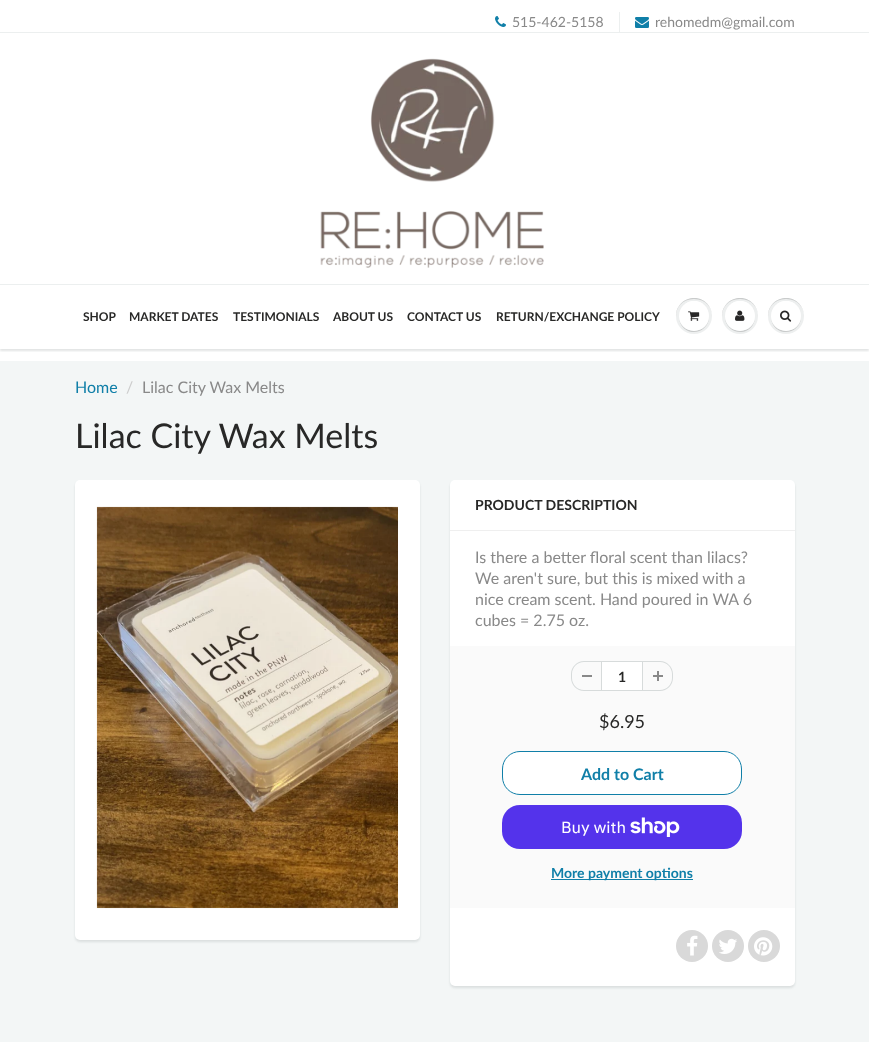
<svg xmlns="http://www.w3.org/2000/svg" xmlns:xlink="http://www.w3.org/1999/xlink" width="869" height="1042" viewBox="0 0 869 1042">
<style>
.cls-1{font:14px Lato;fill:#898989}
.cls-2{font:bold 12px Lato;fill:#282827}
.cls-3{font:16px Lato;fill:#107fa8}
.cls-4{font:16px Lato;fill:#cccccc}
.cls-5{font:16px Lato;fill:#898989}
.cls-6{font:34px Lato;fill:#282827}
.cls-7{font:bold 14px Lato;fill:#282827}
.cls-8{font:18px Lato;fill:#282827}
.cls-9{font:bold 16px Lato;fill:#107fa8}
.cls-10{font:16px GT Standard;fill:#ffffff}
.cls-11{font:bold 14px Lato;fill:#107fa8}
</style>
<defs>
<clipPath id="clip1"><rect x="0" y="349" width="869" height="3"/></clipPath>
</defs>
<rect width="100%" height="100%" fill="#ffffff"/>
<image xlink:href="image0.png" x="495" y="16" width="11" height="11"/>
<rect fill="#ecefef" x="619" y="12" width="1" height="20"/>
<image xlink:href="image1.png" x="635" y="17" width="14" height="11"/>
<rect fill="#ecefef" x="0" y="32" width="869" height="1"/>
<image xlink:href="image2.png" x="320" y="58" width="224" height="210"/>
<g clip-path="url(#clip1)">
<rect fill="#0b191c" fill-opacity="0.12" filter="blur(1px)" x="0" y="286" width="869" height="65"/>
</g>
<rect fill="#ecefef" x="0" y="284" width="869" height="1"/>
<circle fill="#edefef" cx="694" cy="316" r="18"/>
<path fill="#c9cbcb" d="M694 299C706 299 712 307.5 712 316.5C712 313 711 309 709 306C699 291 675.5 298.5 676 316.5C676 307.5 682 299 694 299Z"/>
<path fill="#c9cbcb" d="M709 316.5C708.5 335.5 679.5 335.5 679 316.5C679 319.5 680 323 681.5 325.5C690 338 709.5 331.5 709 316.5Z"/>
<circle fill="#ffffff" cx="694" cy="316" r="15"/>
<path fill="#ffffff" d="M694 302C704 302 709 309 709 316.5C709 313.5 708 310 706.5 307.5C698 295 678.5 301.5 679 316.5C679 309 684 302 694 302Z"/>
<image xlink:href="image3.png" x="688" y="311" width="12" height="10"/>
<circle fill="#edefef" cx="740" cy="316" r="18"/>
<path fill="#c9cbcb" d="M740 299C752 299 758 307.5 758 316.5C758 313 757 309 755 306C745 291 721.5 298.5 722 316.5C722 307.5 728 299 740 299Z"/>
<path fill="#c9cbcb" d="M755 316.5C754.5 335.5 725.5 335.5 725 316.5C724.5 331.5 744 338 752.5 325.5C754 323 755 319.5 755 316.5Z"/>
<circle fill="#ffffff" cx="740" cy="316" r="15"/>
<path fill="#ffffff" d="M740 302C750 302 755 309 755 316.5C755 313.5 754 310 752.5 307.5C744 295 724.5 301.5 725 316.5C725 309 730 302 740 302Z"/>
<image xlink:href="image4.png" x="735" y="310" width="10" height="11"/>
<circle fill="#edefef" cx="786" cy="316" r="18"/>
<path fill="#c9cbcb" d="M786 299C798 299 804 307.5 804 316.5C804 313 803 309 801 306C791 291 767.5 298.5 768 316.5C768 307.5 774 299 786 299Z"/>
<path fill="#c9cbcb" d="M801 316.5C800.5 335.5 771.5 335.5 771 316.5C771 319.5 772 323 773.5 325.5C782 338 801.5 331.5 801 316.5Z"/>
<circle fill="#ffffff" cx="786" cy="316" r="15"/>
<path fill="#ffffff" d="M786 302C796 302 801 309 801 316.5C801 313.5 800 310 798.5 307.5C790 295 770.5 301.5 771 316.5C771 309 776 302 786 302Z"/>
<image xlink:href="image5.png" x="780" y="310" width="12" height="12"/>
<rect fill="#f3f6f6" x="0" y="361" width="869" height="681"/>
<rect fill="#0b191c" fill-opacity="0.1" filter="blur(1px)" x="75" y="482" width="345" height="460" rx="5"/>
<rect fill="#ffffff" x="75" y="480" width="345" height="460" rx="5"/>
<image xlink:href="image6.png" x="96" y="506" width="302" height="403"/>
<rect fill="#0b191c" fill-opacity="0.1" filter="blur(1px)" x="450" y="482" width="345" height="506" rx="5"/>
<rect fill="#ffffff" x="450" y="480" width="345" height="506" rx="5"/>
<rect fill="#efefef" x="450" y="530" width="345" height="1"/>
<rect fill="#fafafa" x="450" y="646" width="345" height="262"/>
<rect fill="#898989" x="582" y="675" width="10" height="2"/>
<path fill="#d7dbdb" fill-rule="evenodd" d="M584 661H601V691H584C577 691 571 685 571 678V674C571 667 577 661 584 661ZM584 662H601V690H584C577.5 690 572 684.5 572 678V674C572 667.5 577.5 662 584 662Z"/>
<rect fill="#ffffff" stroke="#d7dbdb" x="601.5" y="661.5" width="41" height="29"/>
<image xlink:href="image7.png" x="653" y="671" width="10" height="10"/>
<path fill="#d7dbdb" fill-rule="evenodd" d="M643 661H660C667 661 673 667 673 674V678C673 685 667 691 660 691H643ZM643 662H660C666.5 662 672 667.5 672 674V678C672 684.5 666.5 690 660 690H643Z"/>
<rect fill="#ffffff" stroke="#107fa8" x="502.5" y="751.5" width="239" height="43" rx="17.5"/>
<rect fill="#5433eb" x="502" y="805" width="240" height="44" rx="18"/>
<image xlink:href="image8.png" x="630" y="817" width="50" height="20"/>
<rect fill="#107fa8" x="551" y="879" width="142" height="1"/>
<circle fill="#d9d9d9" cx="692" cy="946" r="16"/>
<image xlink:href="image9.png" x="687" y="935" width="11" height="21"/>
<circle fill="#d9d9d9" cx="728" cy="946" r="16"/>
<image xlink:href="image10.png" x="719" y="938" width="18" height="16"/>
<circle fill="#d9d9d9" cx="764" cy="946" r="16"/>
<image xlink:href="image11.png" x="754" y="937" width="19" height="19"/>
<text class="cls-1" x="512" y="27">515-462-5158</text>
<text class="cls-1" x="655" y="27">rehomedm@gmail.com</text>
<text class="cls-2" x="83" y="321">SHOP</text>
<text class="cls-2" x="129" y="321">MARKET DATES</text>
<text class="cls-2" x="233" y="321">TESTIMONIALS</text>
<text class="cls-2" x="333" y="321">ABOUT US</text>
<text class="cls-2" x="407" y="321">CONTACT US</text>
<text class="cls-2" x="496" y="321">RETURN/EXCHANGE POLICY</text>
<text class="cls-3" x="75" y="393">Home</text>
<text class="cls-4" x="126" y="393">/</text>
<text class="cls-5" x="142" y="393">Lilac City Wax Melts</text>
<text class="cls-6" x="75" y="448">Lilac City Wax Melts</text>
<text class="cls-7" x="475" y="510">PRODUCT DESCRIPTION</text>
<text class="cls-5"><tspan x="475" y="563">Is there a better floral scent than lilacs?</tspan><tspan x="475" y="584">We aren't sure, but this is mixed with a</tspan><tspan x="475" y="605">nice cream scent. Hand poured in WA 6</tspan><tspan x="475" y="626">cubes = 2.75 oz.</tspan></text>
<text class="cls-7" x="618" y="682">1</text>
<text class="cls-8" x="599" y="728">$6.95</text>
<text class="cls-9" x="581" y="780">Add to Cart</text>
<text class="cls-10" x="561" y="833">Buy with</text>
<text class="cls-11" x="551" y="878">More payment options</text>
</svg>
